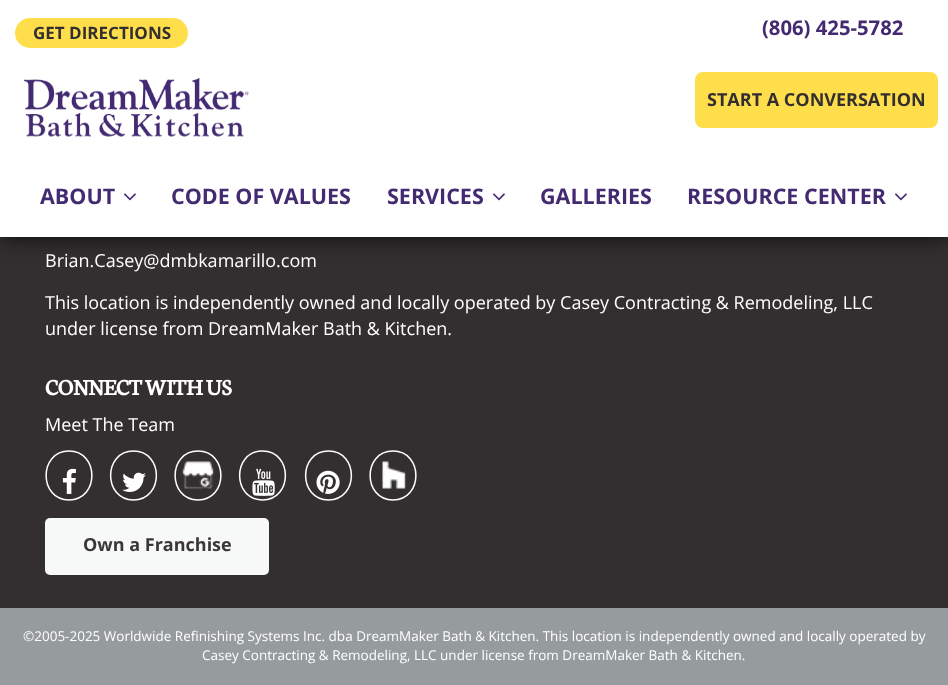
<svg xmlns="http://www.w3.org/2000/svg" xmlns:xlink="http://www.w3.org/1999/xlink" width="948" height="685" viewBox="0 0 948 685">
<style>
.cls-1{font:bold 17px Open Sans;fill:#332e30}
.cls-2{font:bold 20.25px Open Sans;fill:#432a71}
.cls-3{font:bold 18px Open Sans;fill:#332e30}
.cls-4{font:bold 21.5px Open Sans;fill:#432a71}
.cls-5{font:18px Open Sans;fill:#ffffff}
.cls-6{font:bold 23.5px Neuton;fill:#ffffff}
.cls-7{font:bold 18px Open Sans;fill:#3b3738}
.cls-8{font:13.5px Open Sans;fill:#ffffff}
</style>
<rect width="100%" height="100%" fill="#332f30"/>
<rect fill="#000000" fill-opacity="0.8" filter="blur(11px)" x="0" y="0" width="948" height="237"/>
<rect fill="#ffffff" x="0" y="0" width="948" height="237"/>
<rect fill="#ffde4c" x="15" y="18" width="173" height="30" rx="15"/>
<image xlink:href="image0.png" x="24" y="78" width="225" height="59"/>
<rect fill="#ffde4c" x="695" y="72" width="243" height="56" rx="8"/>
<image xlink:href="image1.png" x="124" y="193" width="12" height="8"/>
<image xlink:href="image1.png" x="493" y="193" width="12" height="8"/>
<image xlink:href="image1.png" x="895" y="193" width="12" height="8"/>
<path fill="none" stroke="#ffffff" stroke-width="1.5" d="M69 451C99.5 451 99.5 500 69 500C38.5 500 38.5 451 69 451Z"/>
<image xlink:href="image2.png" x="62" y="468" width="14" height="26"/>
<path fill="none" stroke="#ffffff" stroke-width="1.5" d="M133.5 451C164 451 164 500 133.5 500C103 500 103 451 133.5 451Z"/>
<image xlink:href="image3.png" x="122" y="472" width="24" height="20"/>
<image xlink:href="image4.png" x="182" y="461" width="32" height="28"/>
<path fill="none" stroke="#ffffff" stroke-width="1.5" d="M198 451C228.5 451 228.5 500 198 500C167.5 500 167.5 451 198 451Z"/>
<path fill="none" stroke="#ffffff" stroke-width="1.5" d="M262.5 451C293 451 293 500 262.5 500C232 500 232 451 262.5 451Z"/>
<image xlink:href="image5.png" x="252" y="468" width="23" height="28"/>
<path fill="none" stroke="#ffffff" stroke-width="1.5" d="M328.5 451C359 451 359 500 328.5 500C298 500 298 451 328.5 451Z"/>
<image xlink:href="image6.png" x="316" y="470" width="24" height="24"/>
<image xlink:href="image7.png" x="382" y="461" width="24" height="28"/>
<path fill="none" stroke="#ffffff" stroke-width="1.5" d="M393 451C423.5 451 423.5 500 393 500C362.5 500 362.5 451 393 451Z"/>
<rect fill="#f7f9f8" x="45" y="518" width="224" height="57" rx="5"/>
<rect fill="#969b9e" x="0" y="608" width="948" height="77"/>
<text class="cls-1" x="33" y="39">GET DIRECTIONS</text>
<text class="cls-2" x="762" y="35">(806) 425-5782</text>
<text class="cls-3" x="707" y="106">START A CONVERSATION</text>
<text class="cls-4" x="40" y="204">ABOUT</text>
<text class="cls-4" x="171" y="204">CODE OF VALUES</text>
<text class="cls-4" x="387" y="204">SERVICES</text>
<text class="cls-4" x="540" y="204">GALLERIES</text>
<text class="cls-4" x="687" y="204">RESOURCE CENTER</text>
<text class="cls-5" x="45" y="267">Brian.Casey@dmbkamarillo.com</text>
<text class="cls-5"><tspan x="45" y="309">This location is independently owned and locally operated by Casey Contracting &amp; Remodeling, LLC</tspan><tspan x="45" y="335">under license from DreamMaker Bath &amp; Kitchen.</tspan></text>
<text class="cls-6" x="45" y="395">CONNECT WITH US</text>
<text class="cls-5" x="45" y="431">Meet The Team</text>
<text class="cls-7" x="83" y="551">Own a Franchise</text>
<text class="cls-8" x="23" y="641">©2005-2025 Worldwide Refinishing Systems Inc. dba DreamMaker Bath &amp; Kitchen. This location is independently owned and locally operated by</text>
<text class="cls-8" x="202" y="660">Casey Contracting &amp; Remodeling, LLC under license from DreamMaker Bath &amp; Kitchen.</text>
</svg>
